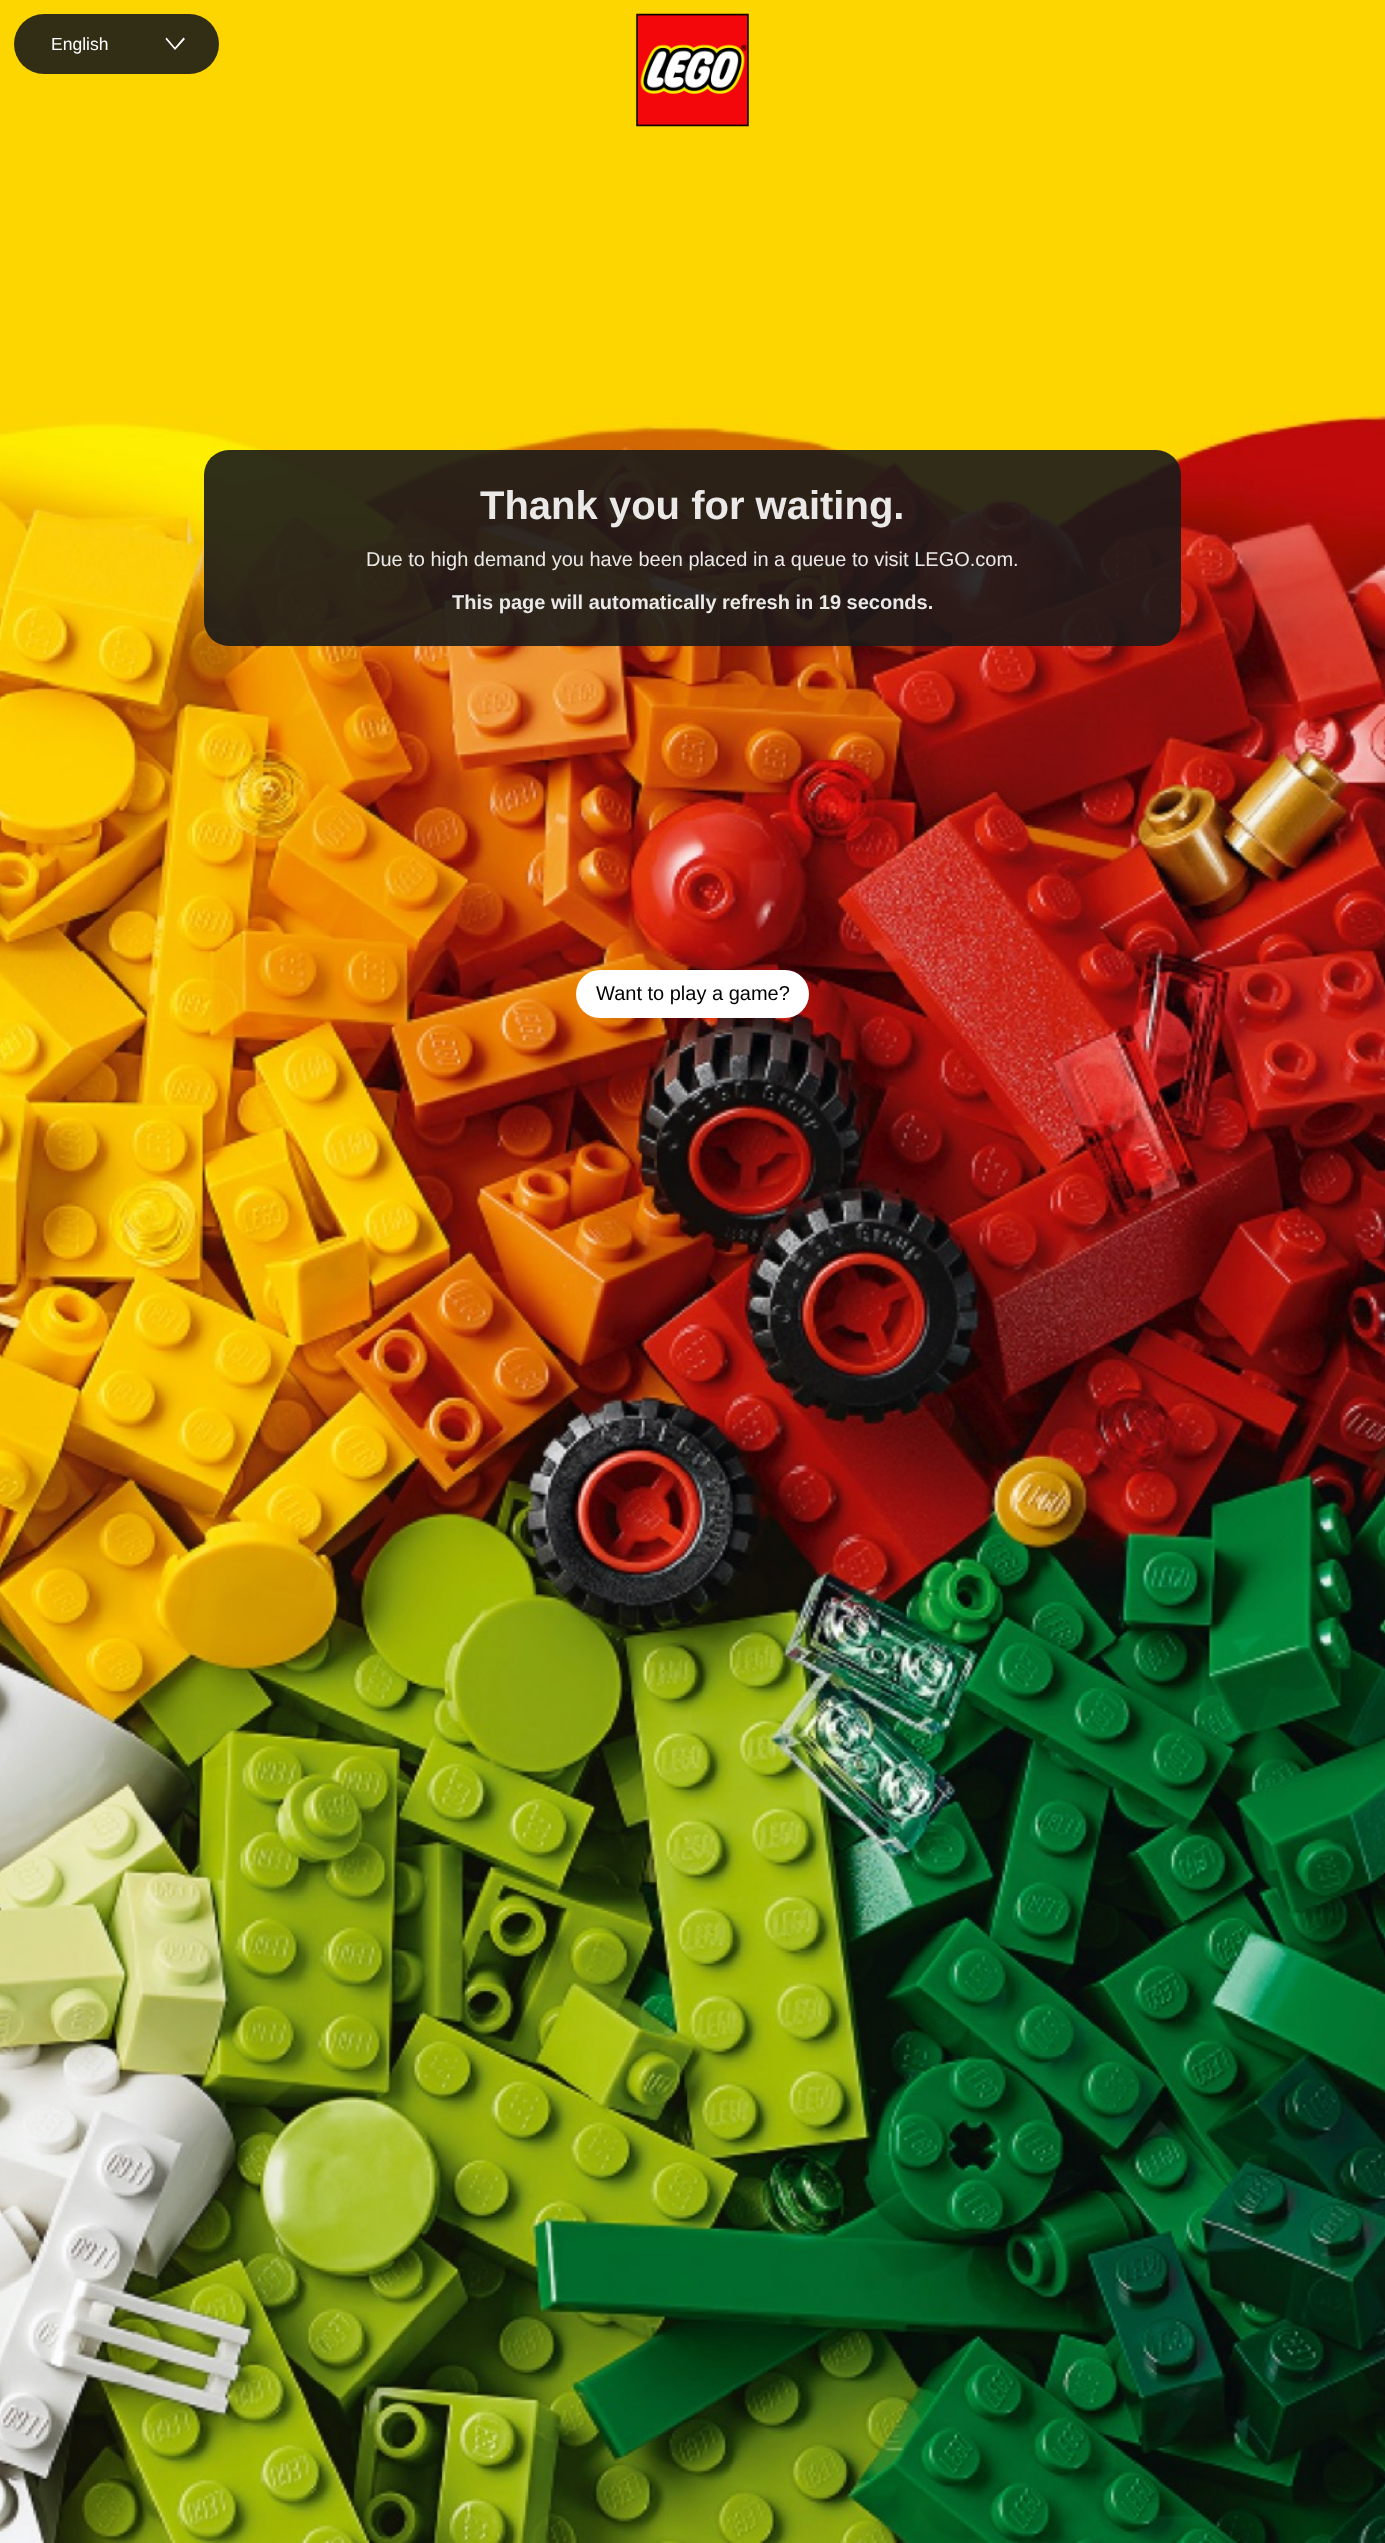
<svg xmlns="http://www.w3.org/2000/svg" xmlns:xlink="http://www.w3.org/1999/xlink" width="1385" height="2543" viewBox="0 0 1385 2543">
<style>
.cls-1{font:17.5px Liberation Sans;fill:#ffffff}
.cls-2{font:bold 40px Liberation Sans;fill:#eae9e8}
.cls-3{font:20px Liberation Sans;fill:#eae9e8}
.cls-4{font:bold 20px Liberation Sans;fill:#eae9e8}
.cls-5{font:20px Liberation Sans;fill:#000000}
</style>
<rect width="100%" height="100%" fill="#ffffff"/>
<image xlink:href="image0.png" x="0" y="0" width="1385" height="2543"/>
<rect fill="#322e16" x="14" y="14" width="205" height="60" rx="30"/>
<path fill="#ffffff" d="M165.5 39L175 50L185 39L183.5 37.5L175 47.5L166.5 37.5Z"/>
<image xlink:href="image1.png" x="636" y="13" width="113" height="114"/>
<rect fill="#191919" fill-opacity="0.9" x="204" y="450" width="977" height="196" rx="25"/>
<rect fill="#ffffff" x="576" y="970" width="233" height="48" rx="24"/>
<text class="cls-1" x="51" y="50">English</text>
<text class="cls-2" x="480" y="519">Thank you for waiting.</text>
<text class="cls-3" x="366" y="566">Due to high demand you have been placed in a queue to visit LEGO.com.</text>
<text class="cls-4" x="452" y="609">This page will automatically refresh in 19 seconds.</text>
<text class="cls-5" x="596" y="1000">Want to play a game?</text>
</svg>
